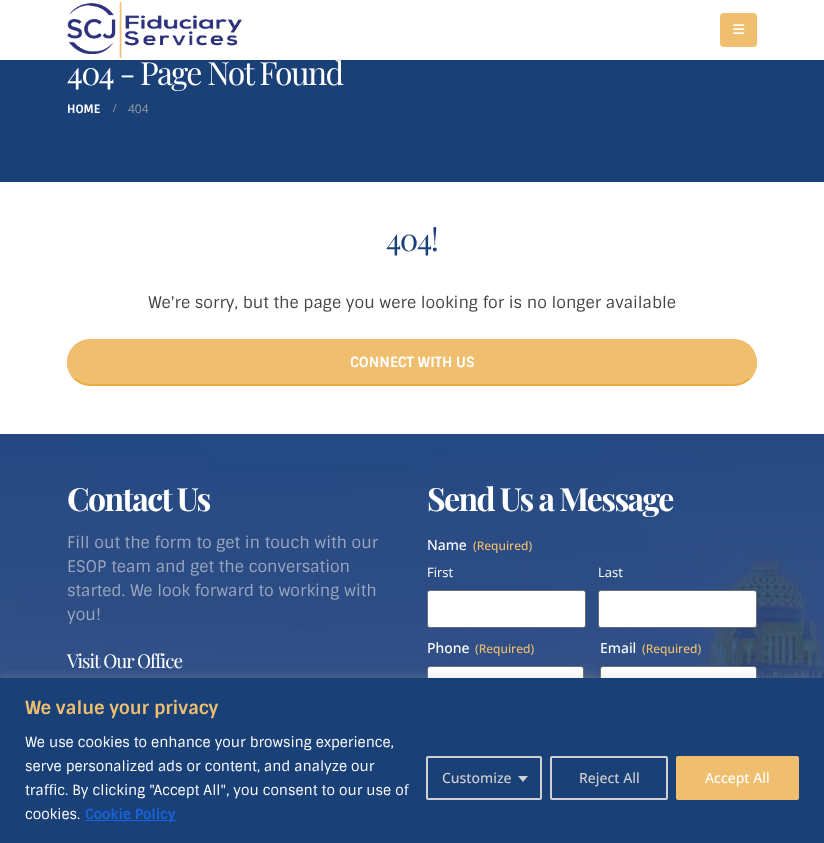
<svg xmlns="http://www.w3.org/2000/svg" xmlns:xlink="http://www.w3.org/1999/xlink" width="824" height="843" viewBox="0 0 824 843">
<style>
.cls-1{font:32px Playfair Display;letter-spacing:-1.6px;fill:#ffffff}
.cls-2{font:bold 11.5px Sintony;fill:#ffffff}
.cls-3{font:bold 12px Liberation Serif;fill:#999da3}
.cls-4{font:12px Open Sans;fill:#999da3}
.cls-5{font:31px Playfair Display;letter-spacing:-1.5px;fill:#1a4078}
.cls-6{font:16px Sintony;fill:#444444}
.cls-7{font:bold 14px Sintony;fill:#ffffff}
.cls-8{font:bold 32px Playfair Display;letter-spacing:-1.6px;fill:#ffffff}
.cls-9{font:16px Sintony;fill:#9ba8bf}
.cls-10{font:19px Playfair Display;letter-spacing:-1px;fill:#ffffff}
.cls-11{font:500 14px Open Sans;fill:#ffffff}
.cls-12{font:500 12px Open Sans;fill:#efbf6f}
.cls-13{font:13px Open Sans;fill:#ffffff}
.cls-14{font:bold 18px Sintony;fill:#efbf6f}
.cls-15{font:14px Sintony;fill:#ffffff}
.cls-16{font:bold 14px Sintony;fill:#1863dc}
.cls-17{font:500 14px Open Sans;fill:#d0d0d0}
</style>
<rect width="100%" height="100%" fill="#ffffff"/>
<rect fill="#1a4078" x="0" y="60" width="824" height="122"/>
<rect fill="#000000" fill-opacity="0.06" filter="blur(1.5px)" x="0" y="0" width="824" height="60"/>
<rect fill="#ffffff" x="0" y="0" width="824" height="60"/>
<image xlink:href="image0.png" x="67" y="1" width="175" height="58"/>
<rect fill="#efbf6f" x="720" y="13" width="37" height="34" rx="4"/>
<image xlink:href="image1.png" x="733" y="24" width="12" height="10"/>
<rect fill="#efbf6f" x="67" y="339" width="690" height="47" rx="23.5"/>
<path fill="none" stroke="#eaab42" stroke-width="2" d="M749.5 378.5C745 382.5 739.5 385 733.5 385H90.5C84.5 385 79 382.5 74.5 378.5"/>
<path fill="none" stroke="#efbf6f" stroke-width="2" d="M74.5 378.5C67.5 371.5 66 360.5 70.5 352C74.5 344.5 82.5 340 90.5 340H733.5C737 340 741 341 744 342.5C757 349.5 760 368 749.5 378.5"/>
<image xlink:href="image2.png" x="0" y="434" width="824" height="244"/>
<rect fill="#ffffff" stroke="#686e77" x="427.5" y="590.5" width="158" height="37" rx="2.5"/>
<rect fill="#ffffff" stroke="#686e77" x="598.5" y="590.5" width="158" height="37" rx="2.5"/>
<rect fill="#121961" fill-opacity="0.08" filter="blur(2px)" x="427" y="667" width="157" height="38" rx="3"/>
<rect fill="#ffffff" stroke="#686e77" x="427.5" y="666.5" width="156" height="37" rx="2.5"/>
<rect fill="#121961" fill-opacity="0.08" filter="blur(2px)" x="600" y="667" width="157" height="38" rx="3"/>
<rect fill="#ffffff" stroke="#686e77" x="600.5" y="666.5" width="156" height="37" rx="2.5"/>
<rect fill="#acabab" fill-opacity="0.3" filter="blur(5px)" x="0" y="677" width="824" height="165"/>
<rect fill="#1a4078" x="0" y="678" width="824" height="165"/>
<rect fill="#1863dc" x="85" y="820" width="91" height="1"/>
<rect fill="none" stroke="#d0d0d0" stroke-width="2" x="427" y="757" width="114" height="42" rx="1"/>
<path fill="#d0d0d0" d="M518 776H528L523 782Z"/>
<rect fill="none" stroke="#d0d0d0" stroke-width="2" x="551" y="757" width="116" height="42" rx="1"/>
<rect fill="#efbf6f" stroke="#efbf6f" stroke-width="2" x="677" y="757" width="121" height="42" rx="1"/>
<text class="cls-1" x="67" y="85">404 - Page Not Found</text>
<text class="cls-2" x="67" y="113">HOME</text>
<text class="cls-3" x="113" y="112">/</text>
<text class="cls-4" x="128" y="113">404</text>
<text class="cls-5" x="386" y="251">404!</text>
<text class="cls-6" x="148" y="308">We're sorry, but the page you were looking for is no longer available</text>
<text class="cls-7" x="350" y="367">CONNECT WITH US</text>
<text class="cls-8" x="67" y="511">Contact Us</text>
<text class="cls-9"><tspan x="67" y="548">Fill out the form to get in touch with our</tspan><tspan x="67" y="572">ESOP team and get the conversation</tspan><tspan x="67" y="596">started. We look forward to working with</tspan><tspan x="67" y="620">you!</tspan></text>
<text class="cls-10" x="67" y="668">Visit Our Office</text>
<text class="cls-8" x="427" y="511">Send Us a Message</text>
<text class="cls-11" x="427" y="550">Name</text>
<text class="cls-12" x="473" y="550">(Required)</text>
<text class="cls-13" x="427" y="577">First</text>
<text class="cls-13" x="598" y="577">Last</text>
<text class="cls-11" x="427" y="653">Phone</text>
<text class="cls-12" x="475" y="653">(Required)</text>
<text class="cls-11" x="600" y="653">Email</text>
<text class="cls-12" x="642" y="653">(Required)</text>
<text class="cls-14" x="25" y="714">We value your privacy</text>
<text class="cls-15"><tspan x="25" y="747">We use cookies to enhance your browsing experience,</tspan><tspan x="25" y="771">serve personalized ads or content, and analyze our</tspan><tspan x="25" y="795">traffic. By clicking "Accept All", you consent to our use of</tspan><tspan x="25" y="819">cookies.</tspan></text>
<text class="cls-16" x="85" y="819">Cookie Policy</text>
<text class="cls-17" x="442" y="783">Customize</text>
<text class="cls-17" x="579" y="783">Reject All</text>
<text class="cls-11" x="705" y="783">Accept All</text>
</svg>
